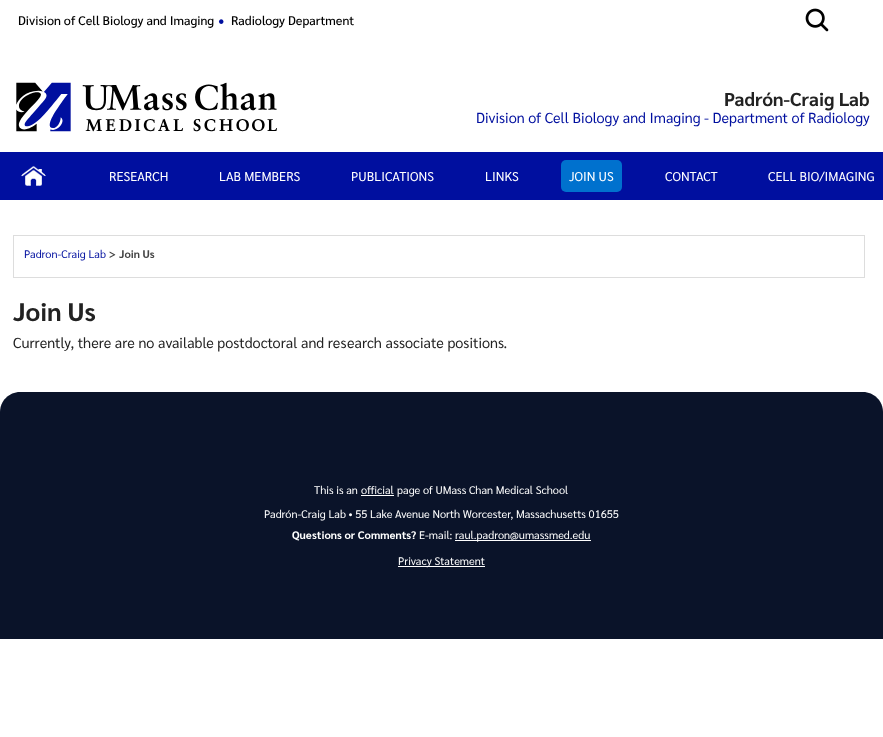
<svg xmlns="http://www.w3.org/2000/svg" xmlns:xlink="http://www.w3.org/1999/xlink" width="883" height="737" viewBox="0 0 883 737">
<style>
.cls-1{font:500 12.5px Sarabun;fill:#000000}
.cls-2{font:500 32px Sarabun;fill:#000f9f}
.cls-3{font:bold 18.75px Sarabun;fill:#222222}
.cls-4{font:14.5px Sarabun;fill:#000f9f}
.cls-5{font:12.75px Sarabun;fill:#ffffff}
.cls-6{font:11px Sarabun;fill:#000f9f}
.cls-7{font:bold 11px Sarabun;fill:#444444}
.cls-8{font:bold 25.5px Sarabun;fill:#222222}
.cls-9{font:14.5px Sarabun;fill:#222222}
.cls-10{font:11px Sarabun;fill:#ffffff}
.cls-11{font:bold 11px Sarabun;fill:#ffffff}
</style>
<rect width="100%" height="100%" fill="#ffffff"/>
<image xlink:href="image0.png" x="805" y="8" width="24" height="24"/>
<image xlink:href="image1.png" x="16" y="82" width="261" height="50"/>
<rect fill="#000f9f" x="0" y="152" width="883" height="48"/>
<image xlink:href="image2.png" x="21" y="166" width="25" height="20"/>
<rect fill="#0071ce" x="561" y="160" width="61" height="32" rx="5"/>
<rect fill="none" stroke="#dddddd" x="13.5" y="235.5" width="851" height="42"/>
<path fill="#0a1329" d="M20 392H863C874 392 883 401 883 412V639H0V412C0 401 9 392 20 392Z"/>
<rect fill="#ffffff" x="361" y="495" width="33" height="1"/>
<rect fill="#ffffff" x="455" y="540" width="136" height="1"/>
<rect fill="#ffffff" x="398" y="566" width="87" height="1"/>
<text class="cls-1" x="18" y="25">Division of Cell Biology and Imaging</text>
<text class="cls-2" x="217" y="30">·</text>
<text class="cls-1" x="231" y="25">Radiology Department</text>
<text class="cls-3" x="724" y="106">Padrón-Craig Lab</text>
<text class="cls-4" x="476" y="123">Division of Cell Biology and Imaging - Department of Radiology</text>
<text class="cls-5" x="109" y="181">RESEARCH</text>
<text class="cls-5" x="219" y="181">LAB MEMBERS</text>
<text class="cls-5" x="351" y="181">PUBLICATIONS</text>
<text class="cls-5" x="485" y="181">LINKS</text>
<text class="cls-5" x="569" y="181">JOIN US</text>
<text class="cls-5" x="665" y="181">CONTACT</text>
<text class="cls-5" x="768" y="181">CELL BIO/IMAGING</text>
<text class="cls-6" x="24" y="258">Padron-Craig Lab</text>
<text class="cls-7" x="109" y="258">&gt;</text>
<text class="cls-7" x="119" y="258">Join Us</text>
<text class="cls-8" x="13" y="321">Join Us</text>
<text class="cls-9" x="13" y="348">Currently, there are no available postdoctoral and research associate positions.</text>
<text class="cls-10" x="314" y="494">This is an</text>
<text class="cls-10" x="361" y="494">official</text>
<text class="cls-10" x="397" y="494">page of UMass Chan Medical School</text>
<text class="cls-10" x="264" y="518">Padrón-Craig Lab • 55 Lake Avenue North Worcester, Massachusetts 01655</text>
<text class="cls-11" x="292" y="539">Questions or Comments?</text>
<text class="cls-10" x="419" y="539">E-mail:</text>
<text class="cls-10" x="455" y="539">raul.padron@umassmed.edu</text>
<text class="cls-10" x="398" y="565">Privacy Statement</text>
</svg>
